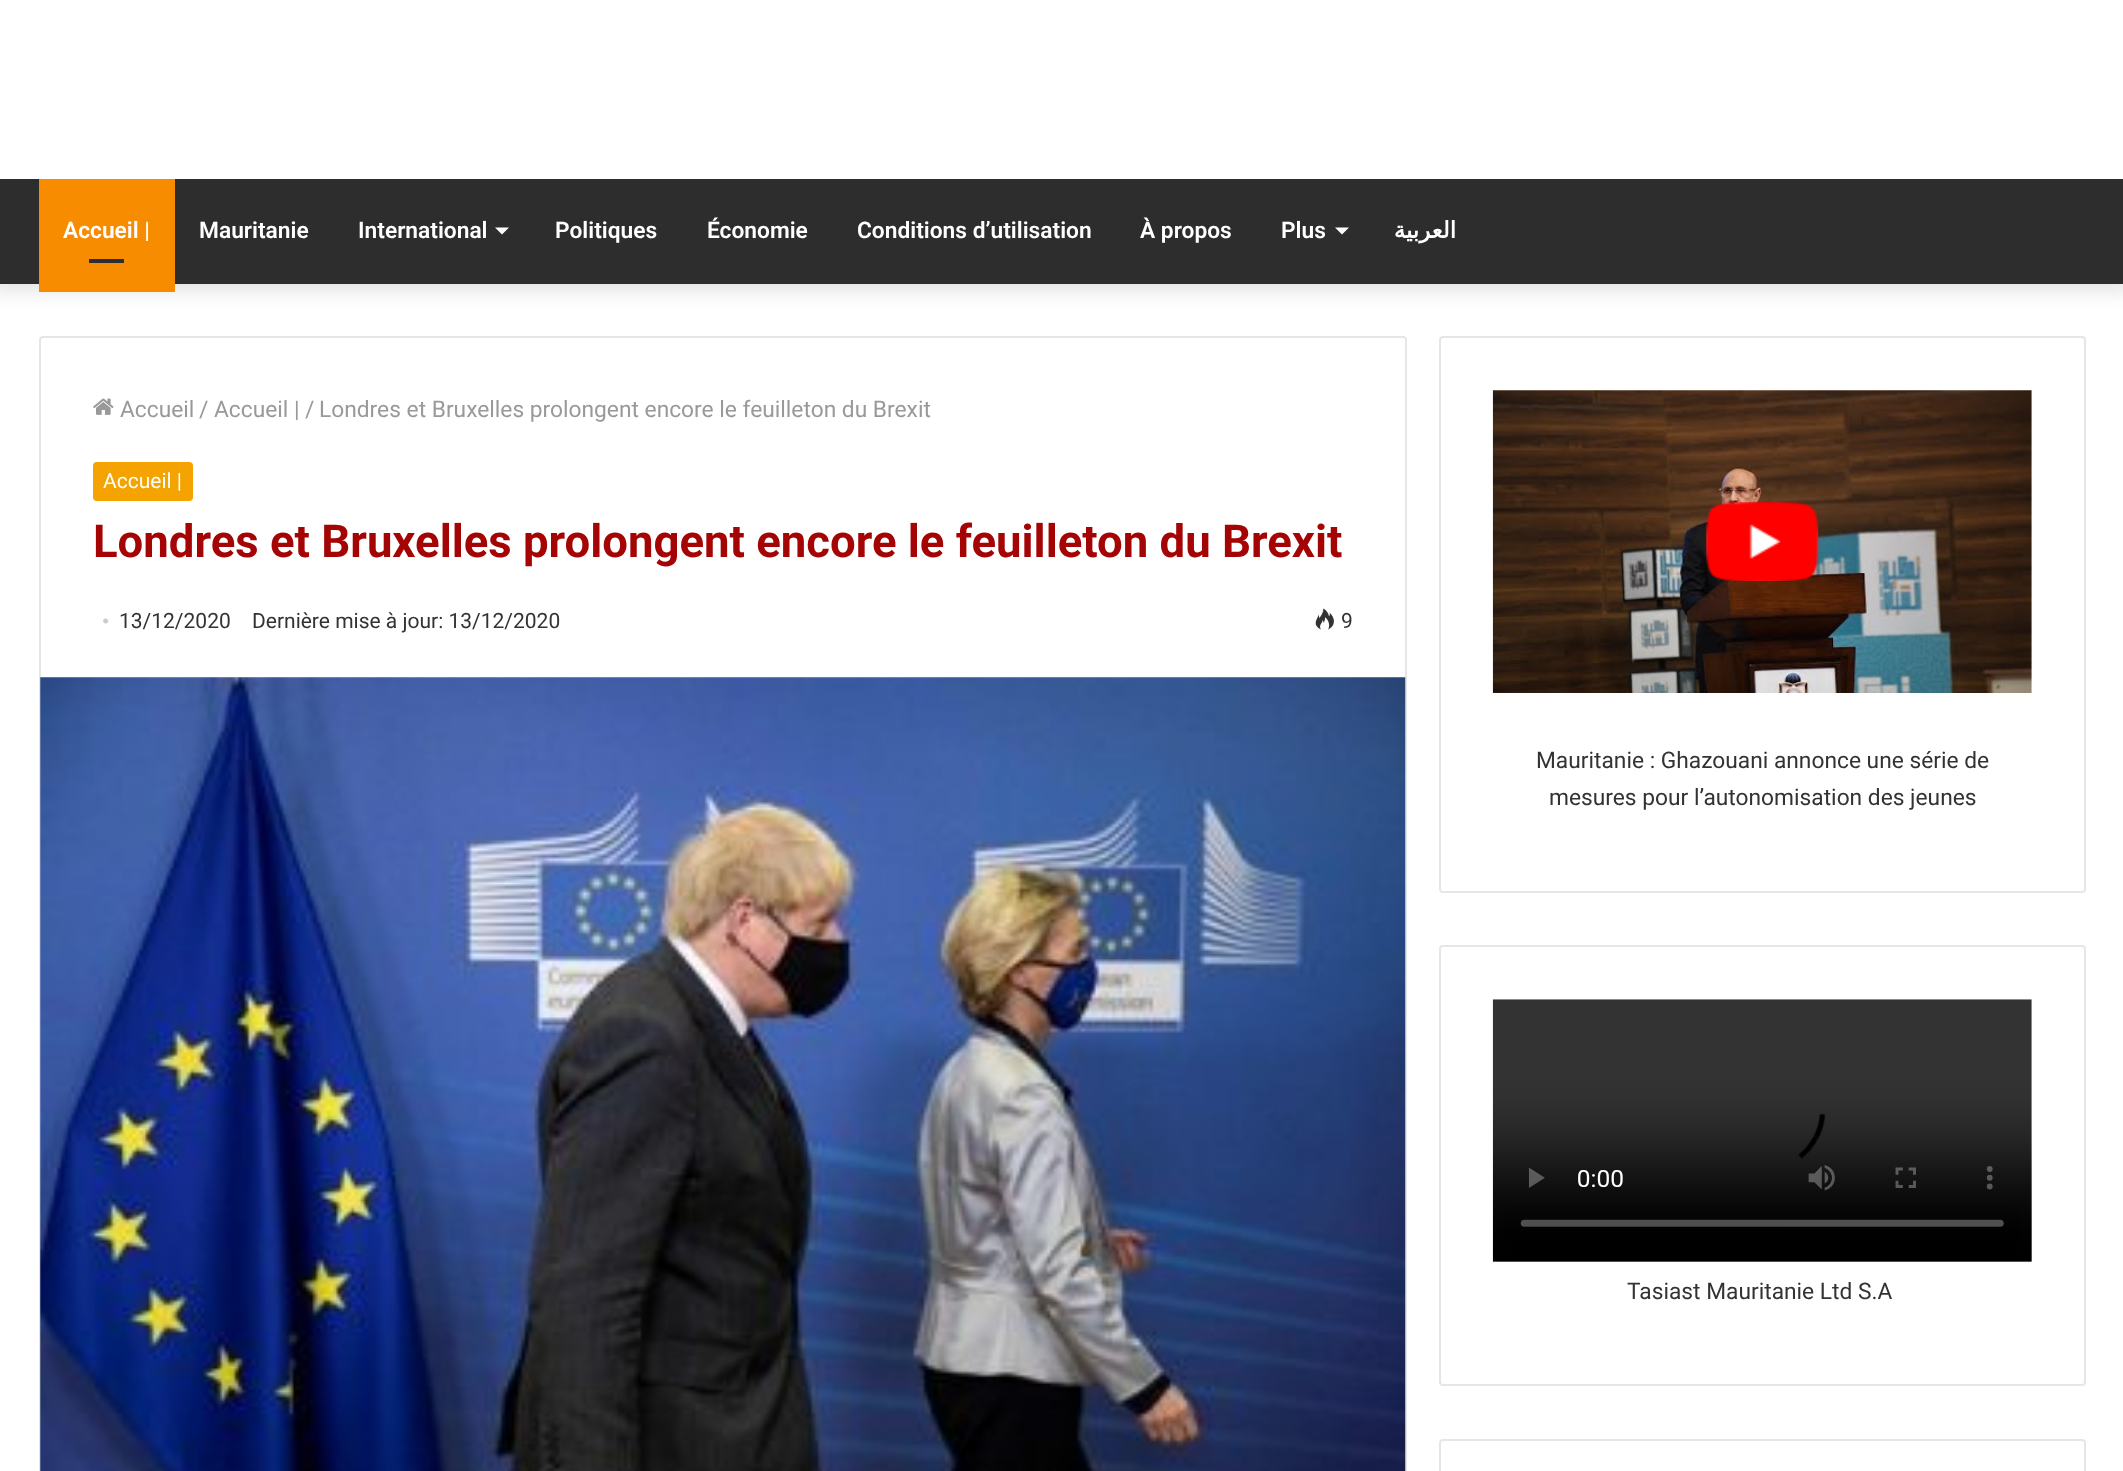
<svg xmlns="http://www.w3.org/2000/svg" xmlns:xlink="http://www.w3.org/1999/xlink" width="2123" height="1471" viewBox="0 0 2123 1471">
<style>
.cls-1{font:600 22.75px Roboto;fill:#ffffff}
.cls-2{font:bold 22.75px DejaVu Sans;direction:rtl;fill:#ffffff}
.cls-3{font:22.75px Roboto;fill:#999999}
.cls-4{font:21px Roboto;fill:#ffffff}
.cls-5{font:bold 45.5px Roboto;fill:#a50404}
.cls-6{font:21px Liberation Serif;fill:#cccccc}
.cls-7{font:21px Roboto;fill:#333333}
.cls-8{font:22.75px Roboto;fill:#333333}
</style>
<rect width="100%" height="100%" fill="#ffffff"/>
<rect fill="#000000" fill-opacity="0.1" filter="blur(9px)" x="-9" y="-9" width="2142" height="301"/>
<rect fill="#ffffff" x="0" y="0" width="2123" height="179"/>
<rect fill="#2d2d2d" x="0" y="179" width="2123" height="105"/>
<rect fill="#f88c00" x="39" y="179" width="136" height="113"/>
<rect fill="#2c2f34" x="89" y="259" width="35" height="4"/>
<path fill="#ffffff" d="M495 227.5H509L502 234.5Z"/>
<path fill="#ffffff" d="M1335 227.5H1349L1342 234.5Z"/>
<rect fill="none" stroke="#e6e6e6" stroke-width="2" x="40" y="337" width="1366" height="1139" rx="3"/>
<image xlink:href="image0.png" x="93" y="398" width="21" height="17"/>
<rect fill="#f4a300" x="93" y="462" width="100" height="39" rx="4"/>
<image xlink:href="image1.png" x="1315" y="608" width="19" height="22"/>
<image xlink:href="image2.png" x="40" y="677" width="1366" height="794"/>
<rect fill="none" stroke="#e6e6e6" stroke-width="2" x="1440" y="337" width="645" height="555" rx="3"/>
<image xlink:href="image3.png" x="1492" y="390" width="540" height="303"/>
<image xlink:href="image4.png" x="1706" y="502" width="113" height="79"/>
<rect fill="none" stroke="#e6e6e6" stroke-width="2" x="1440" y="946" width="645" height="439" rx="3"/>
<image xlink:href="image5.png" x="1492" y="999" width="540" height="263"/>
<rect fill="none" stroke="#e6e6e6" stroke-width="2" x="1440" y="1440" width="645" height="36" rx="3"/>
<text class="cls-1" x="63" y="238">Accueil |</text>
<text class="cls-1" x="199" y="238">Mauritanie</text>
<text class="cls-1" x="358" y="238">International</text>
<text class="cls-1" x="555" y="238">Politiques</text>
<text class="cls-1" x="707" y="238">Économie</text>
<text class="cls-1" x="857" y="238">Conditions d’utilisation</text>
<text class="cls-1" x="1140" y="238">À propos</text>
<text class="cls-1" x="1281" y="238">Plus</text>
<text class="cls-2" x="1456" y="238">العربية</text>
<text class="cls-3" x="120" y="417">Accueil</text>
<text class="cls-3" x="199" y="417">/</text>
<text class="cls-3" x="214" y="417">Accueil |</text>
<text class="cls-3" x="305" y="417">/</text>
<text class="cls-3" x="319" y="417">Londres et Bruxelles prolongent encore le feuilleton du Brexit</text>
<text class="cls-4" x="103" y="488">Accueil |</text>
<text class="cls-5" x="93" y="557">Londres et Bruxelles prolongent encore le feuilleton du Brexit</text>
<text class="cls-6" x="102" y="628">•</text>
<text class="cls-7" x="119" y="628">13/12/2020</text>
<text class="cls-7" x="252" y="628">Dernière mise à jour: 13/12/2020</text>
<text class="cls-7" x="1341" y="628">9</text>
<text class="cls-8" x="1536" y="768">Mauritanie : Ghazouani annonce une série de</text>
<text class="cls-8" x="1549" y="805">mesures pour l’autonomisation des jeunes</text>
<text class="cls-8" x="1627" y="1299">Tasiast Mauritanie Ltd S.A</text>
</svg>
